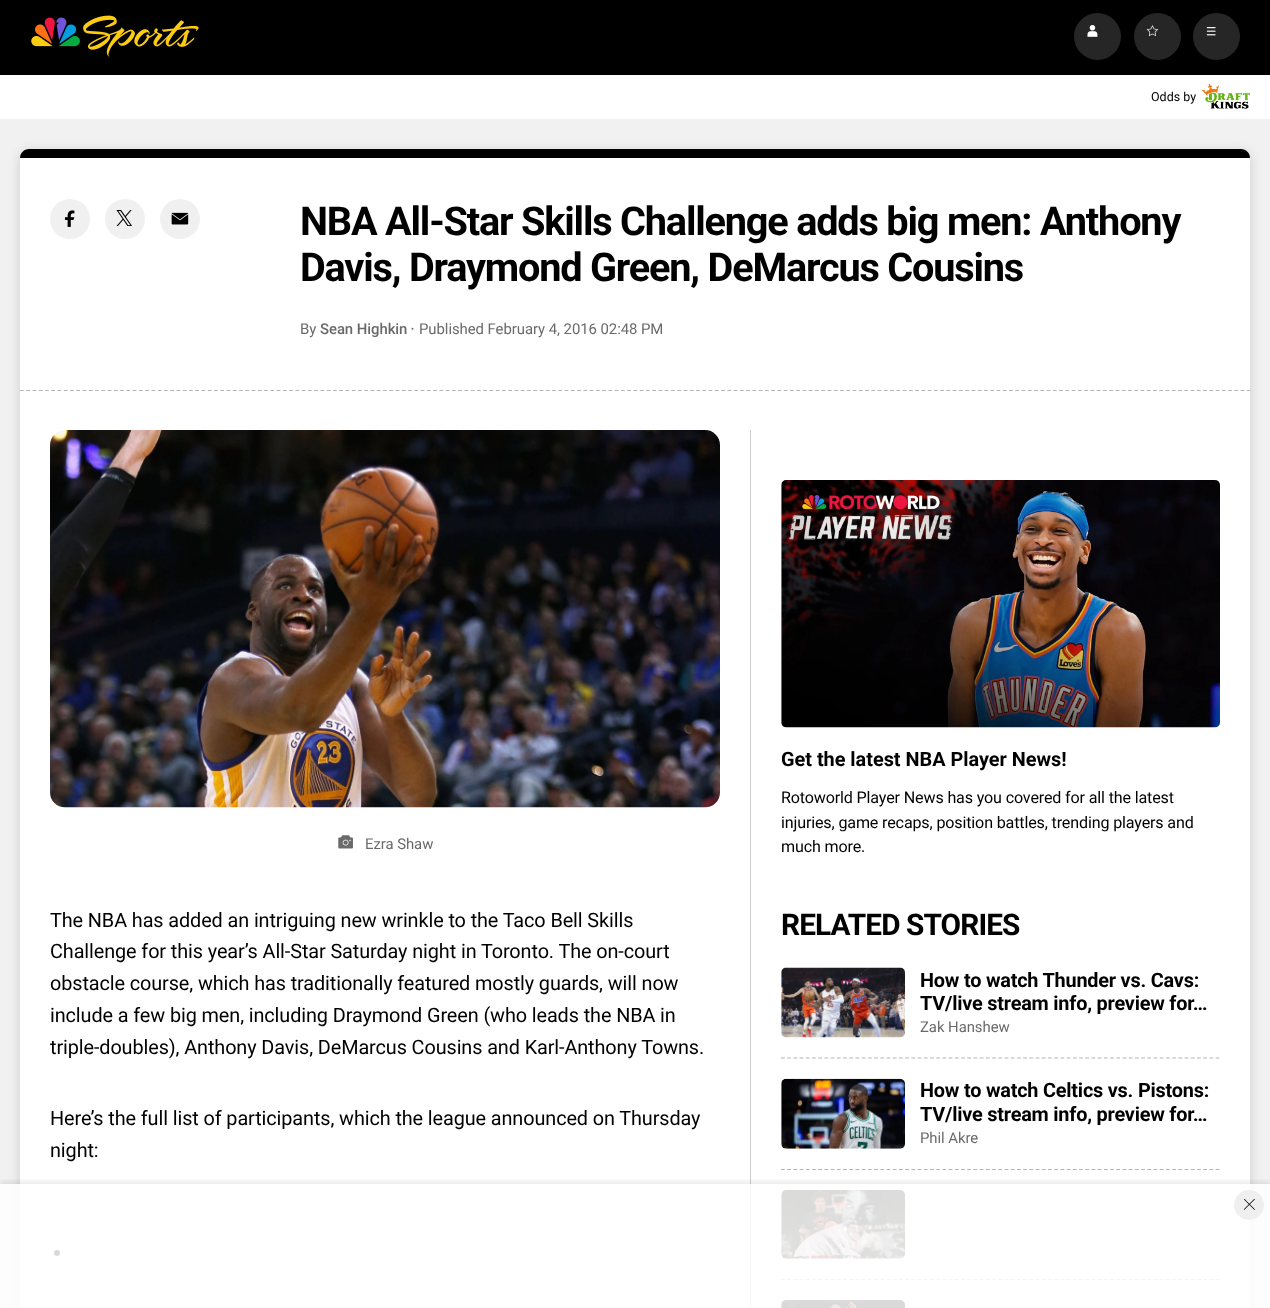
<svg xmlns="http://www.w3.org/2000/svg" xmlns:xlink="http://www.w3.org/1999/xlink" width="1270" height="1308" viewBox="0 0 1270 1308">
<style>
.cls-1{font:12.5px Roboto;fill:#000000}
.cls-2{font:bold 39.7px Roboto;letter-spacing:-1.2px;fill:#000000}
.cls-3{font:14.9px Roboto;letter-spacing:-0.05px;fill:#6a6a6a}
.cls-4{font:500 14.9px Roboto;letter-spacing:-0.05px;fill:#6a6a6a}
.cls-5{font:19.85px Roboto;letter-spacing:-0.1px;fill:#000000}
.cls-6{font:bold 19.85px Roboto;fill:#000000}
.cls-7{font:16.1px Roboto;letter-spacing:-0.15px;fill:#000000}
.cls-8{font:bold 29.75px Roboto;letter-spacing:-0.9px;fill:#000000}
.cls-9{font:bold 19.85px Roboto;letter-spacing:-0.2px;fill:#000000}
</style>
<defs>
<clipPath id="clip1"><rect x="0" y="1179" width="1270" height="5"/></clipPath>
</defs>
<rect width="100%" height="100%" fill="#f1f1f1"/>
<rect fill="#000000" x="0" y="0" width="1270" height="75"/>
<image xlink:href="image0.png" x="31" y="15" width="168" height="42"/>
<circle fill="#262626" cx="1097.5" cy="36.5" r="23.5"/>
<image xlink:href="image1.png" x="1087" y="25" width="11" height="12"/>
<circle fill="#262626" cx="1157.5" cy="36.5" r="23.5"/>
<image xlink:href="image2.png" x="1146" y="25" width="13" height="11"/>
<circle fill="#262626" cx="1216.5" cy="36.5" r="23.5"/>
<image xlink:href="image3.png" x="1206" y="27" width="10" height="9"/>
<rect fill="#ffffff" x="0" y="75" width="1270" height="44"/>
<image xlink:href="image4.png" x="1201" y="83" width="49" height="26"/>
<rect fill="#000000" fill-opacity="0.15" filter="blur(6px)" x="20" y="151" width="1230" height="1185" rx="10"/>
<rect fill="#ffffff" x="20" y="149" width="1230" height="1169" rx="10"/>
<path fill="#000000" d="M29 149H1241C1246 149 1250 153 1250 158H20C20 153 24 149 29 149Z"/>
<path fill="none" stroke="#b3b3b3" stroke-width="1.2" stroke-dasharray="3.75 2.51" d="M20 390.5H1250"/>
<circle fill="#f0f0f0" cx="70" cy="219" r="20"/>
<image xlink:href="image5.png" x="64" y="210" width="11" height="17"/>
<circle fill="#f0f0f0" cx="125" cy="219" r="20"/>
<image xlink:href="image6.png" x="116" y="210" width="16" height="16"/>
<circle fill="#f0f0f0" cx="180" cy="219" r="20"/>
<image xlink:href="image7.png" x="171" y="212" width="18" height="13"/>
<circle fill="#6a6a6a" cx="412.5" cy="328.7" r="1"/>
<image xlink:href="image8.png" x="50" y="430" width="670" height="378"/>
<image xlink:href="image9.png" x="338" y="835" width="15" height="14"/>
<circle fill="#000000" cx="57" cy="1253" r="3"/>
<rect fill="#cccccc" x="750" y="430" width="1" height="878"/>
<image xlink:href="image10.png" x="781" y="480" width="439" height="248"/>
<image xlink:href="image11.png" x="781" y="967" width="124" height="71"/>
<path fill="none" stroke="#b3b3b3" stroke-width="1.2" stroke-dasharray="3.75 2.46" d="M781 1058H1220"/>
<image xlink:href="image12.png" x="781" y="1078" width="124" height="71"/>
<path fill="none" stroke="#b3b3b3" stroke-width="1.2" stroke-dasharray="3.75 2.46" d="M781 1169.5H1220"/>
<image xlink:href="image13.png" x="781" y="1190" width="124" height="69"/>
<path fill="none" stroke="#b3b3b3" stroke-width="1.2" stroke-dasharray="3.75 2.46" d="M781 1279.5H1220"/>
<image xlink:href="image14.png" x="781" y="1300" width="124" height="8"/>
<g clip-path="url(#clip1)">
<rect fill="#000000" fill-opacity="0.08" filter="blur(2.5px)" x="0" y="1181" width="1270" height="125"/>
</g>
<rect fill="#ffffff" fill-opacity="0.85" x="0" y="1184" width="1270" height="124"/>
<circle fill="#efefef" cx="1249" cy="1205" r="15"/>
<image xlink:href="image15.png" x="1244" y="1199" width="11" height="11"/>
<text class="cls-1" x="1151" y="101">Odds by</text>
<text class="cls-2"><tspan x="300" y="235">NBA All-Star Skills Challenge adds big men: Anthony</tspan><tspan x="300" y="281">Davis, Draymond Green, DeMarcus Cousins</tspan></text>
<text class="cls-3" x="300" y="334">By</text>
<text class="cls-4" x="320" y="334">Sean Highkin</text>
<text class="cls-3" x="419" y="334">Published February 4, 2016 02:48 PM</text>
<text class="cls-3" x="365" y="849">Ezra Shaw</text>
<text class="cls-5"><tspan x="50" y="927">The NBA has added an intriguing new wrinkle to the Taco Bell Skills</tspan><tspan x="50" y="958">Challenge for this year’s All-Star Saturday night in Toronto. The on-court</tspan><tspan x="50" y="990">obstacle course, which has traditionally featured mostly guards, will now</tspan><tspan x="50" y="1022">include a few big men, including Draymond Green (who leads the NBA in</tspan><tspan x="50" y="1054">triple-doubles), Anthony Davis, DeMarcus Cousins and Karl-Anthony Towns.</tspan></text>
<text class="cls-5"><tspan x="50" y="1125">Here’s the full list of participants, which the league announced on Thursday</tspan><tspan x="50" y="1157">night:</tspan></text>
<text class="cls-6" x="781" y="766">Get the latest NBA Player News!</text>
<text class="cls-7"><tspan x="781" y="803">Rotoworld Player News has you covered for all the latest</tspan><tspan x="781" y="828">injuries, game recaps, position battles, trending players and</tspan><tspan x="781" y="852">much more.</tspan></text>
<text class="cls-8" x="781" y="935">RELATED STORIES</text>
<text class="cls-9"><tspan x="920" y="987">How to watch Thunder vs. Cavs:</tspan><tspan x="920" y="1010">TV/live stream info, preview for…</tspan></text>
<text class="cls-3" x="920" y="1032">Zak Hanshew</text>
<text class="cls-9"><tspan x="920" y="1097">How to watch Celtics vs. Pistons:</tspan><tspan x="920" y="1121">TV/live stream info, preview for…</tspan></text>
<text class="cls-3" x="920" y="1143">Phil Akre</text>
</svg>
